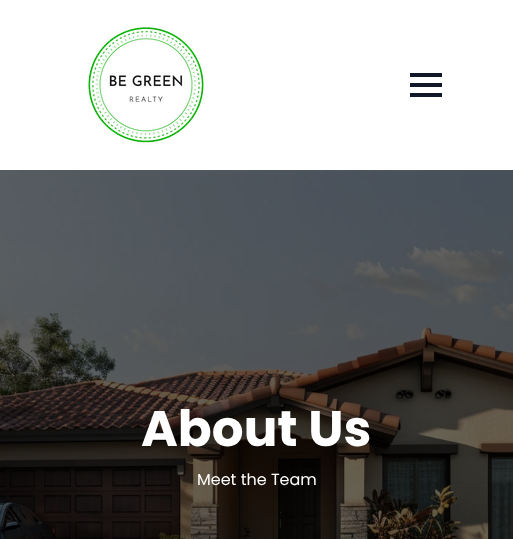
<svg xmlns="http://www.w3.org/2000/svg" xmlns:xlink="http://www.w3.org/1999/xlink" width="513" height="539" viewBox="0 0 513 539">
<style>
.cls-1{font:bold 50px Poppins;fill:#ffffff}
.cls-2{font:16px Poppins;fill:#ffffff}
</style>
<rect width="100%" height="100%" fill="#ffffff"/>
<image xlink:href="image0.png" x="86" y="27" width="118" height="118"/>
<rect fill="#111827" x="410" y="83" width="32" height="4"/>
<rect fill="#111827" x="410" y="73" width="32" height="4"/>
<rect fill="#111827" x="410" y="93" width="32" height="4"/>
<image xlink:href="image1.png" x="0" y="170" width="513" height="369"/>
<text class="cls-1" x="141" y="446">About Us</text>
<text class="cls-2" x="197" y="485">Meet the Team</text>
</svg>
